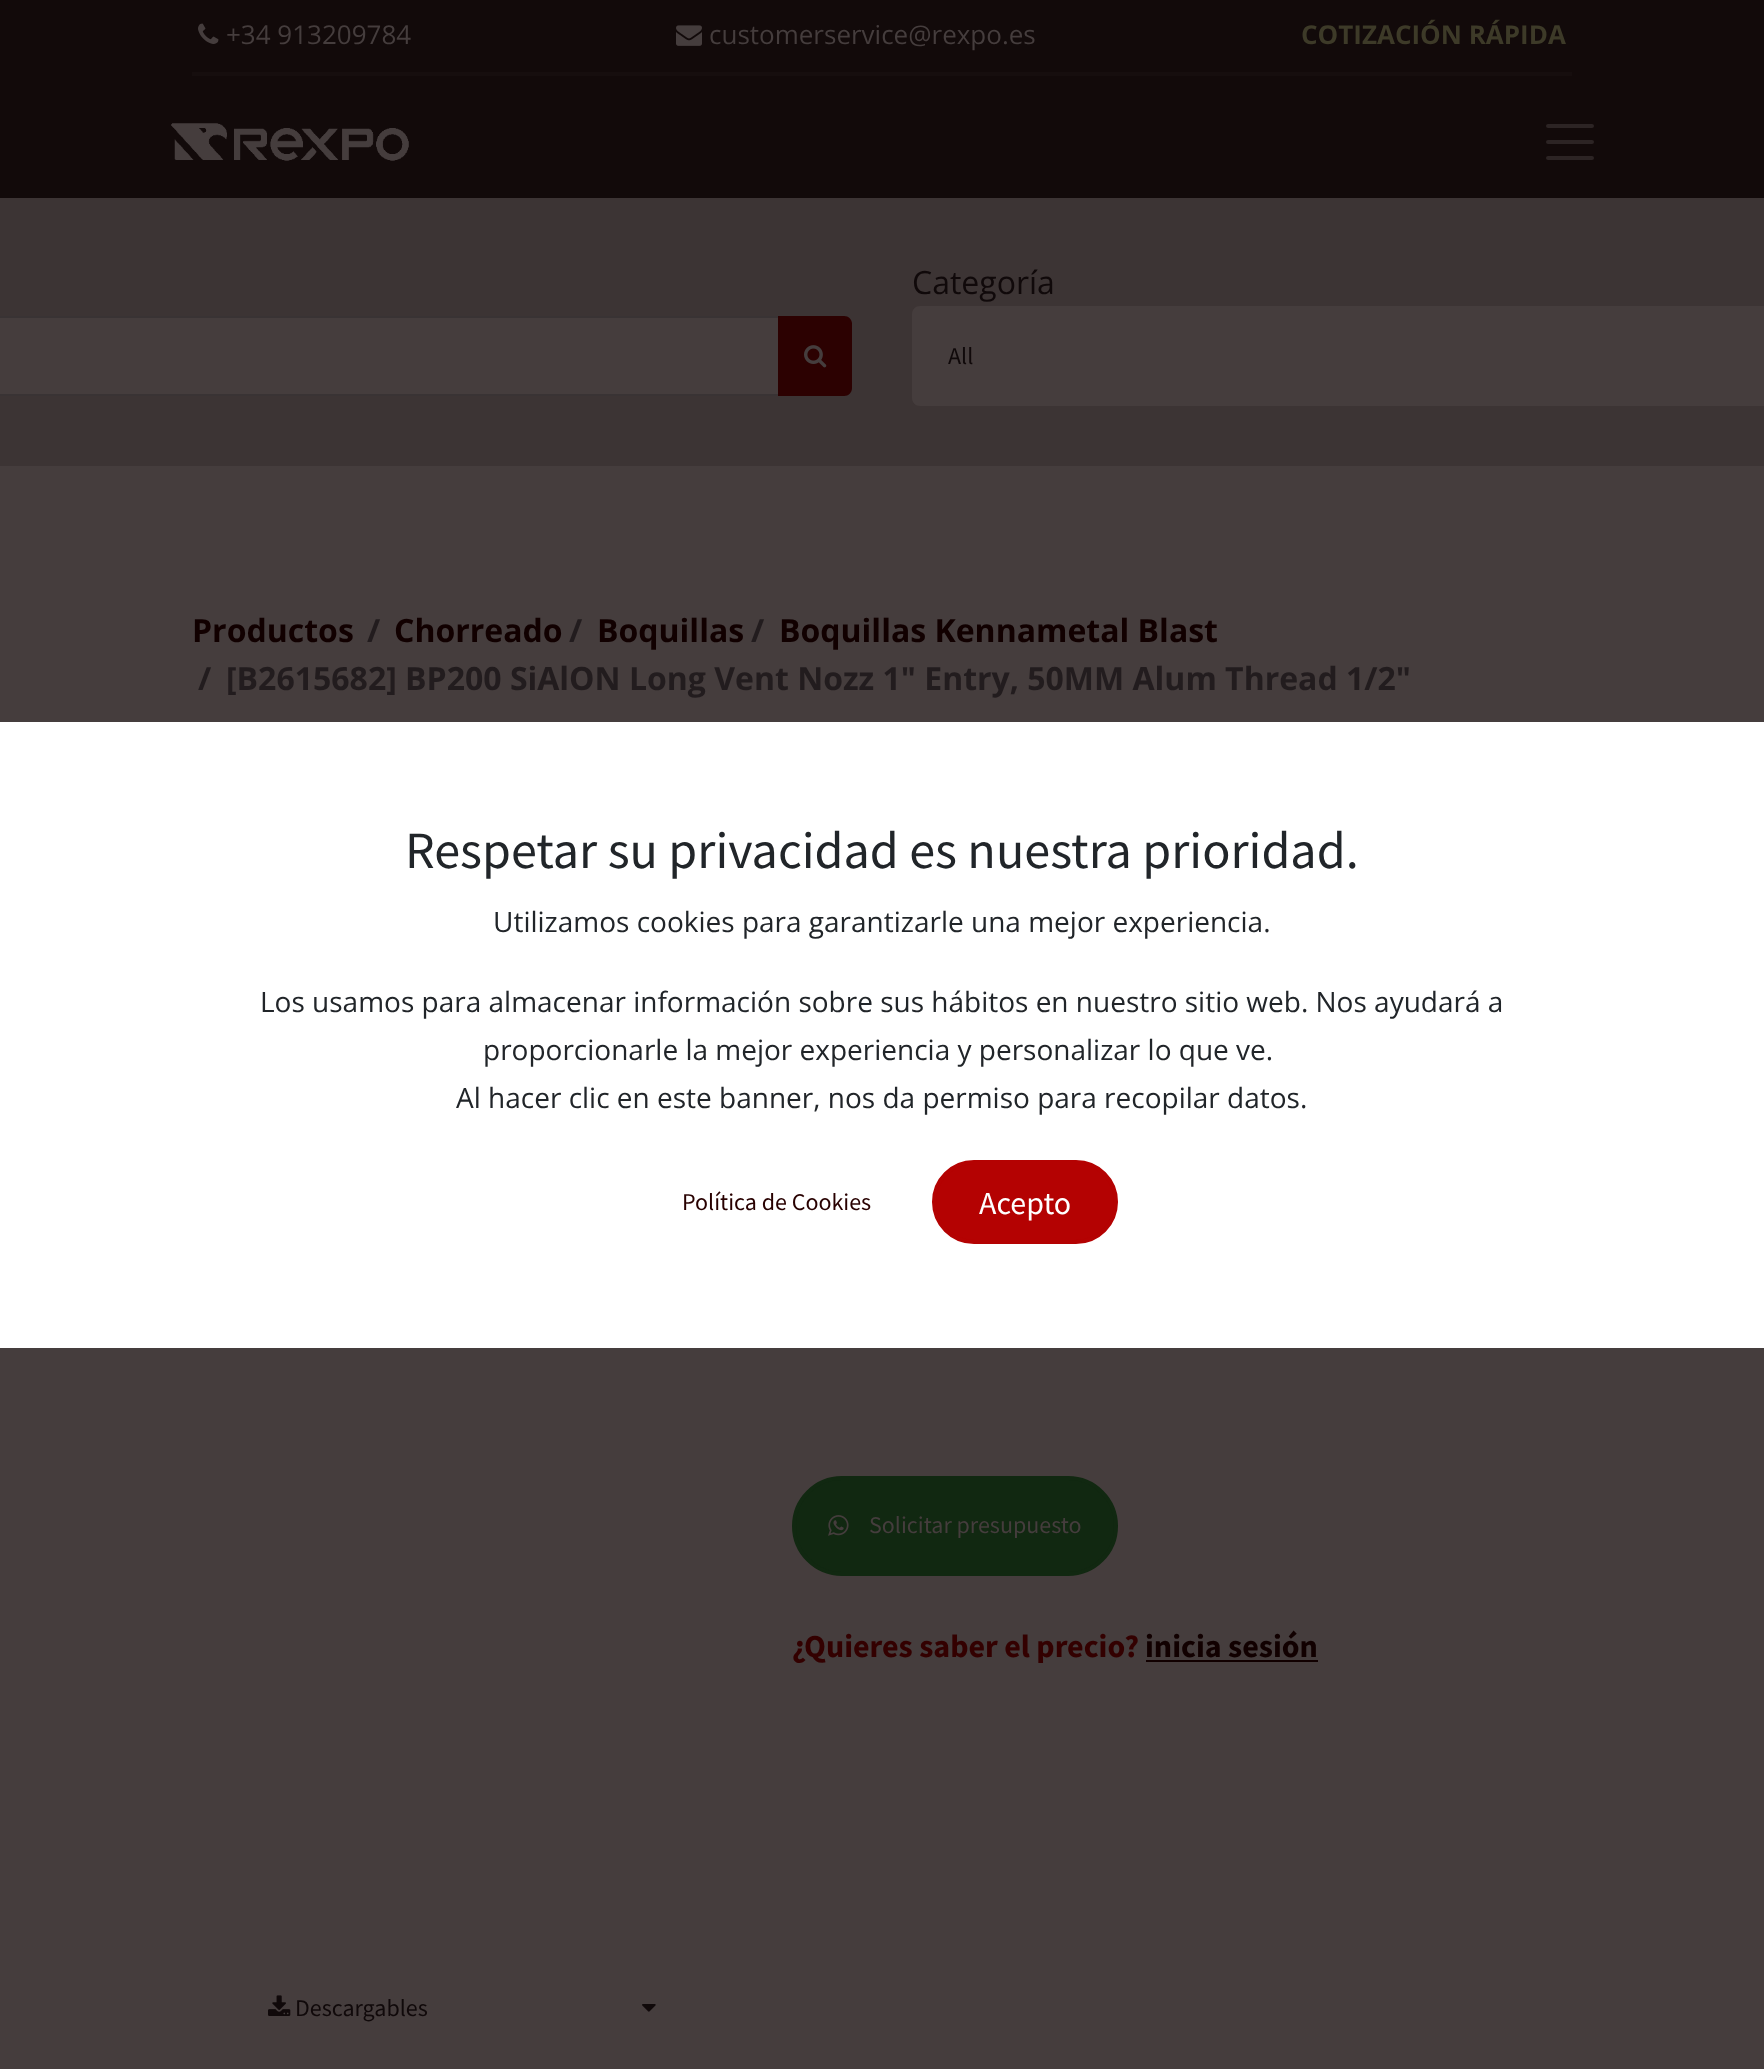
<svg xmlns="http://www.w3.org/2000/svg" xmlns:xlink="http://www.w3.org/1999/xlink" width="1764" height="2069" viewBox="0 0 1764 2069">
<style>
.cls-1{font:26px Open Sans;fill:#453d3d}
.cls-2{font:bold 26px Open Sans;fill:#3d3a28}
.cls-3{font:32px Open Sans;fill:#10090a}
.cls-4{font:24px Source Sans Pro;fill:#10090a}
.cls-5{font:bold 32px Open Sans;fill:#110000}
.cls-6{font:bold 32px Open Sans;fill:#221c1e}
.cls-7{font:24px Source Sans Pro;fill:#453d3d}
.cls-8{font:bold 32px Source Sans Pro;fill:#330000}
.cls-9{font:bold 32px Source Sans Pro;fill:#110000}
.cls-10{font:52.2px Source Sans Pro;fill:#212529}
.cls-11{font:28px Open Sans;fill:#212529}
.cls-12{font:24px Source Sans Pro;fill:#280000}
.cls-13{font:32px Source Sans Pro;fill:#ffffff}
</style>
<rect width="100%" height="100%" fill="#453d3d"/>
<rect fill="#120a0a" x="0" y="0" width="1764" height="198"/>
<image xlink:href="image0.png" x="198" y="23" width="21" height="21"/>
<image xlink:href="image1.png" x="676" y="25" width="26" height="21"/>
<rect fill="#160e0e" x="192" y="72" width="1380" height="4"/>
<image xlink:href="image2.png" x="171" y="123" width="238" height="38"/>
<path fill="none" stroke="#2c2424" stroke-width="4" stroke-linecap="round" d="M1548 126H1592M1548 142H1592M1548 158H1592"/>
<rect fill="#3c3434" x="0" y="198" width="1764" height="268"/>
<rect fill="#453d3d" stroke="#393334" stroke-width="2" x="-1" y="317" width="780" height="78"/>
<path fill="#2c0101" d="M778 316H844C848.5 316 852 319.5 852 324V388C852 392.5 848.5 396 844 396H778Z"/>
<image xlink:href="image3.png" x="804" y="345" width="23" height="23"/>
<path fill="#453d3d" d="M920 306H1764V406H920C915.5 406 912 402.5 912 398V314C912 309.5 915.5 306 920 306Z"/>
<rect fill="#112811" stroke="#112811" stroke-width="4" x="794" y="1478" width="322" height="96" rx="48"/>
<image xlink:href="image4.png" x="828" y="1515" width="21" height="21"/>
<rect fill="#110000" x="1146" y="1660" width="172" height="2"/>
<image xlink:href="image5.png" x="268" y="1995" width="23" height="21"/>
<image xlink:href="image6.png" x="642" y="2004" width="14" height="8"/>
<rect fill="#ffffff" x="0" y="722" width="1764" height="626"/>
<rect fill="#b40202" stroke="#b40202" stroke-width="4" x="934" y="1162" width="182" height="80" rx="40"/>
<text class="cls-1" x="226" y="44">+34 913209784</text>
<text class="cls-1" x="709" y="44">customerservice@rexpo.es</text>
<text class="cls-2" x="1301" y="44">COTIZACIÓN RÁPIDA</text>
<text class="cls-3" x="912" y="294">Categoría</text>
<text class="cls-4" x="948" y="364">All</text>
<text class="cls-5" x="192" y="642">Productos</text>
<text class="cls-6" x="367" y="642">/</text>
<text class="cls-5" x="394" y="642">Chorreado</text>
<text class="cls-6" x="569" y="642">/</text>
<text class="cls-5" x="597" y="642">Boquillas</text>
<text class="cls-6" x="751" y="642">/</text>
<text class="cls-5" x="779" y="642">Boquillas Kennametal Blast</text>
<text class="cls-6" x="198" y="690">/</text>
<text class="cls-6" x="226" y="690">[B2615682] BP200 SiAlON Long Vent Nozz 1" Entry, 50MM Alum Thread 1/2"</text>
<text class="cls-7" x="869" y="1533">Solicitar presupuesto</text>
<text class="cls-8" x="792" y="1657">¿Quieres saber el precio?</text>
<text class="cls-9" x="1145" y="1657">inicia sesión</text>
<text class="cls-4" x="295" y="2016">Descargables</text>
<text class="cls-10" x="405" y="868">Respetar su privacidad es nuestra prioridad.</text>
<text class="cls-11" x="493" y="932">Utilizamos cookies para garantizarle una mejor experiencia.</text>
<text class="cls-11" x="260" y="1012">Los usamos para almacenar información sobre sus hábitos en nuestro sitio web. Nos ayudará a</text>
<text class="cls-11" x="483" y="1060">proporcionarle la mejor experiencia y personalizar lo que ve.</text>
<text class="cls-11" x="456" y="1108">Al hacer clic en este banner, nos da permiso para recopilar datos.</text>
<text class="cls-12" x="682" y="1210">Política de Cookies</text>
<text class="cls-13" x="979" y="1214">Acepto</text>
</svg>
